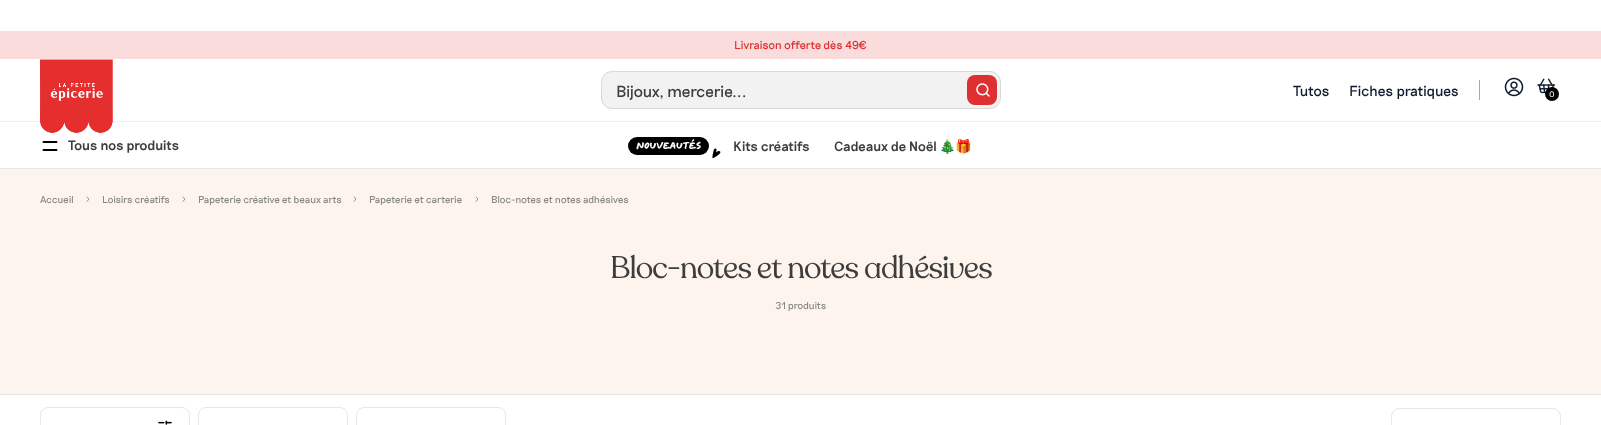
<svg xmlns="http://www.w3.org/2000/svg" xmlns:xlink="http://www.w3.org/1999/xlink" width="1601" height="425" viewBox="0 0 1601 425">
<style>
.cls-1{font:11.5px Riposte;fill:#df3031}
.cls-2{font:16px Riposte;fill:#3d3d3d}
.cls-3{font:14.5px Riposte;fill:#0d1b2e}
.cls-4{font:8px Riposte;fill:#ffffff}
.cls-5{font:500 13.5px Riposte;fill:#3d3d3d}
.cls-6{font:20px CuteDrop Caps;letter-spacing:-1px;fill:#ffffff}
.cls-7{font:13.5px Noto Color Emoji;fill:#3d3d3d}
.cls-8{font:10px Riposte;fill:#888a82}
.cls-9{font:31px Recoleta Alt;letter-spacing:-1px;fill:#3d3d3d}
</style>
<rect width="100%" height="100%" fill="#ffffff"/>
<rect fill="#fadcdc" x="0" y="31" width="1601" height="28"/>
<rect fill="#e7e7e7" x="0" y="168" width="1601" height="1"/>
<rect fill="#f0f0f0" x="0" y="121" width="1601" height="1"/>
<image xlink:href="image0.png" x="40" y="59" width="73" height="74"/>
<rect fill="#f2f2f3" x="601" y="71" width="400" height="38" rx="11"/>
<rect fill="none" stroke="#000000" stroke-opacity="0.1" x="601.5" y="71.5" width="399" height="37" rx="10.5"/>
<rect fill="#df3031" x="967" y="75" width="30" height="30" rx="8"/>
<image xlink:href="image1.png" x="976" y="83" width="14" height="14"/>
<rect fill="#a9a8a6" x="1479" y="80" width="1" height="20"/>
<image xlink:href="image2.png" x="1504" y="77" width="20" height="20"/>
<image xlink:href="image3.png" x="1537" y="78" width="19" height="16"/>
<circle fill="#000000" cx="1552" cy="94" r="7"/>
<path fill="none" stroke="#000000" stroke-width="1.9" stroke-linecap="round" stroke-linejoin="round" d="M43.5 150H56.5M43.5 142H56.5"/>
<rect fill="#000000" x="628" y="137" width="81" height="18" rx="9"/>
<image xlink:href="image4.png" x="712" y="148" width="9" height="11"/>
<rect fill="#fdf4ed" x="0" y="169" width="1601" height="225"/>
<path fill="none" stroke="#888a82" stroke-width="0.9" stroke-linecap="round" stroke-linejoin="round" d="M87 201.5L89 199L87 197"/>
<path fill="none" stroke="#888a82" stroke-width="0.9" stroke-linecap="round" stroke-linejoin="round" d="M183 201.5L185 199L183 197"/>
<path fill="none" stroke="#888a82" stroke-width="0.9" stroke-linecap="round" stroke-linejoin="round" d="M354 201.5L356 199L354 197"/>
<path fill="none" stroke="#888a82" stroke-width="0.9" stroke-linecap="round" stroke-linejoin="round" d="M476 201.5L478 199L476 197"/>
<rect fill="#e7e7e7" x="0" y="394" width="1601" height="1"/>
<rect fill="none" stroke="#e7e7e7" x="40.5" y="407.5" width="149" height="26" rx="7.5"/>
<image xlink:href="image5.png" x="158" y="420" width="14" height="5"/>
<rect fill="none" stroke="#e7e7e7" x="198.5" y="407.5" width="149" height="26" rx="7.5"/>
<rect fill="none" stroke="#e7e7e7" x="356.5" y="407.5" width="149" height="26" rx="7.5"/>
<rect fill="none" stroke="#e7e7e7" x="1391.5" y="408.5" width="169" height="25" rx="7.5"/>
<text class="cls-1" x="734" y="49">Livraison offerte dès 49€</text>
<text class="cls-2" x="616" y="97">Bijoux, mercerie...</text>
<text class="cls-3" x="1293" y="96">Tutos</text>
<text class="cls-3" x="1349" y="96">Fiches pratiques</text>
<text class="cls-4" x="1549" y="97">0</text>
<text class="cls-5" x="68" y="150">Tous nos produits</text>
<text class="cls-6" x="636" y="150">NOUVEAUTÉS</text>
<text class="cls-5" x="733" y="151">Kits créatifs</text>
<text class="cls-5" x="834" y="151">Cadeaux de Noël</text>
<text class="cls-7" x="939" y="151">🎄🎁</text>
<text class="cls-8" x="40" y="203">Accueil</text>
<text class="cls-8" x="102" y="203">Loisirs créatifs</text>
<text class="cls-8" x="198" y="203">Papeterie créative et beaux arts</text>
<text class="cls-8" x="369" y="203">Papeterie et carterie</text>
<text class="cls-8" x="491" y="203">Bloc-notes et notes adhésives</text>
<text class="cls-9" x="610" y="278">Bloc-notes et notes adhésives</text>
<text class="cls-8" x="775" y="309">31 produits</text>
</svg>
